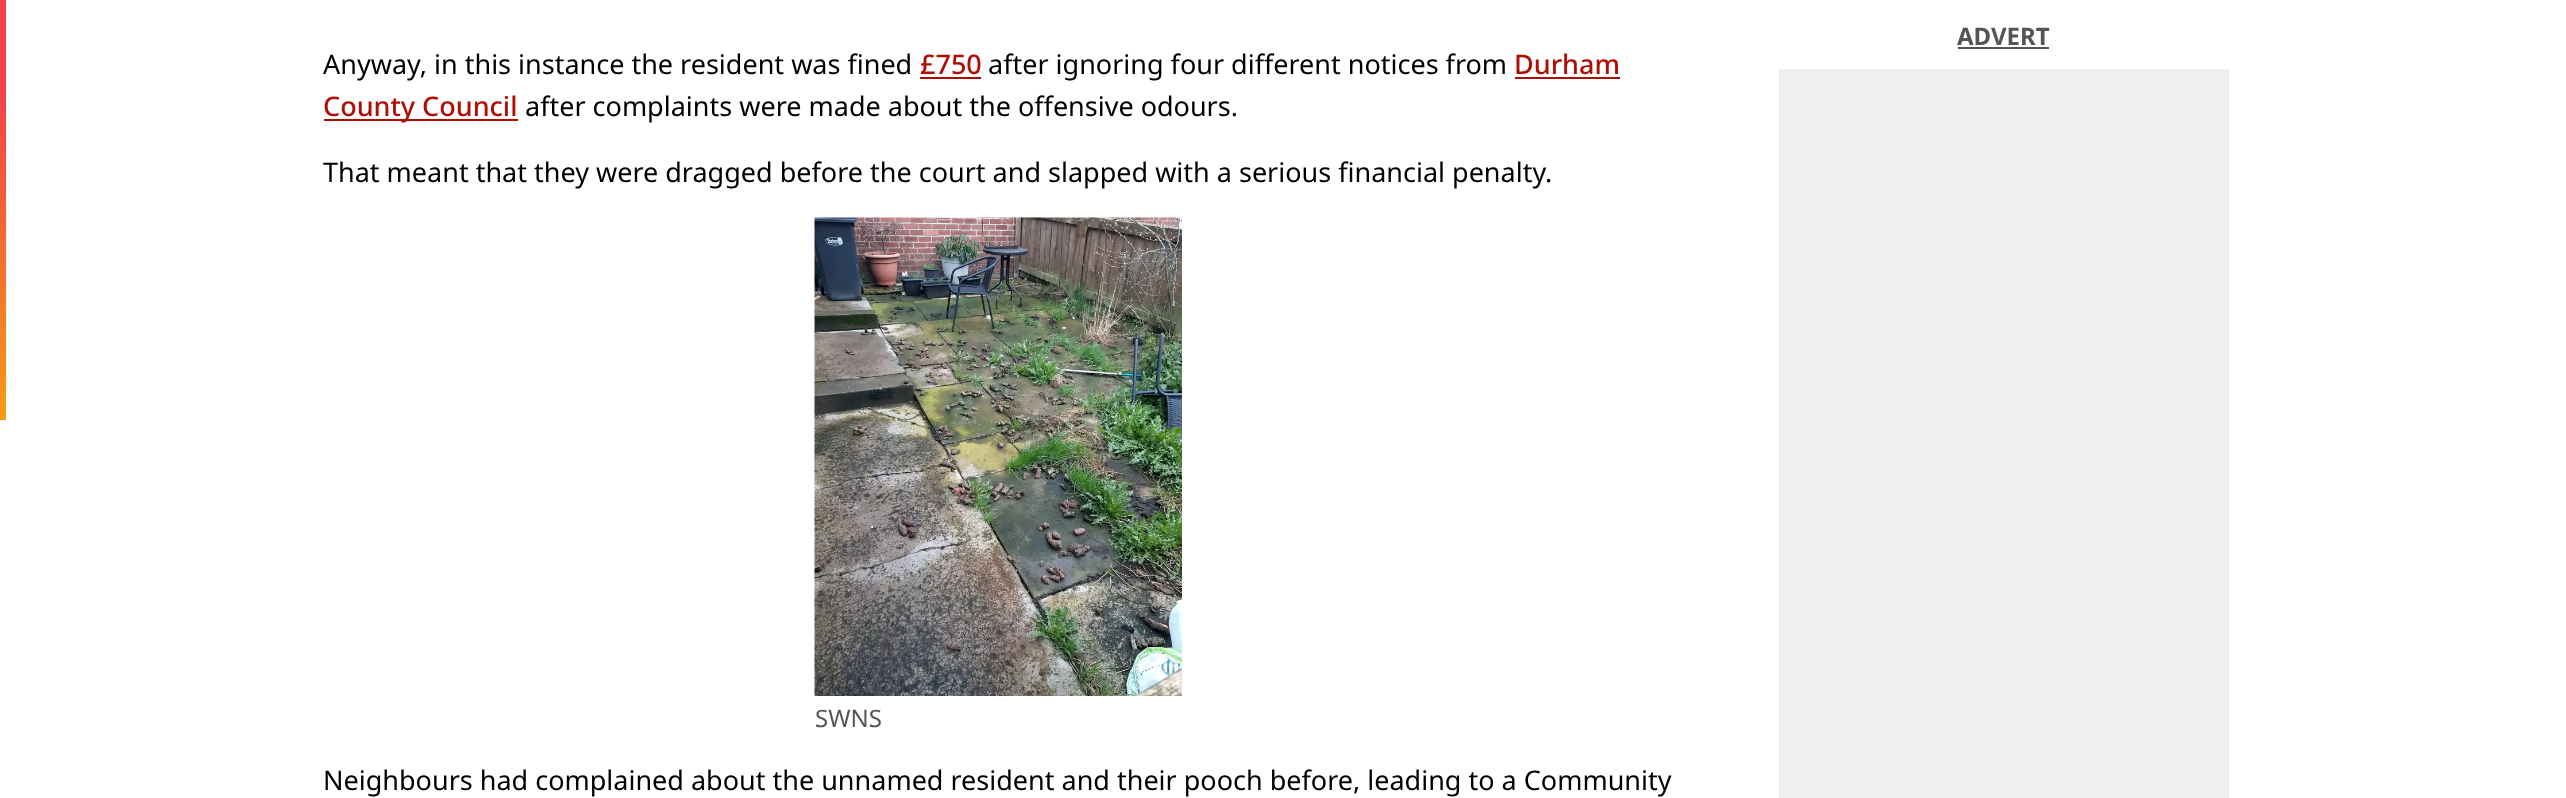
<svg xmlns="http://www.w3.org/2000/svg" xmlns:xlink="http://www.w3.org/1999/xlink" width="2566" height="798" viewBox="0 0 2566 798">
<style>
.cls-1{font:bold 24px Noto Sans;fill:#555555}
.cls-2{font:27px Noto Sans;fill:#000000}
.cls-3{font:500 27px Noto Sans;fill:#b00e04}
.cls-4{font:24px Noto Sans;fill:#555555}
</style>
<defs>
<linearGradient id="g1" gradientUnits="userSpaceOnUse" x1="3" y1="0" x2="3" y2="420"><stop offset="0.21" stop-color="#f24149"/><stop offset="1" stop-color="#f59b15"/></linearGradient>
</defs>
<rect width="100%" height="100%" fill="#ffffff"/>
<rect fill="url(#g1)" x="0" y="0" width="6" height="420"/>
<rect fill="#555555" x="1958" y="47" width="91" height="2"/>
<rect fill="#efefef" x="1779" y="69" width="450" height="729"/>
<rect fill="#b00e04" x="920" y="77" width="61" height="2"/>
<rect fill="#b00e04" x="1515" y="77" width="105" height="2"/>
<rect fill="#b00e04" x="324" y="119" width="194" height="2"/>
<image xlink:href="image0.png" x="814" y="217" width="368" height="479"/>
<text class="cls-1" x="1957" y="45">ADVERT</text>
<text class="cls-2" x="323" y="74">Anyway, in this instance the resident was fined</text>
<text class="cls-3" x="920" y="74">£750</text>
<text class="cls-2" x="988" y="74">after ignoring four different notices from</text>
<text class="cls-3" x="1514" y="74">Durham</text>
<text class="cls-3" x="323" y="116">County Council</text>
<text class="cls-2" x="525" y="116">after complaints were made about the offensive odours.</text>
<text class="cls-2" x="323" y="182">That meant that they were dragged before the court and slapped with a serious financial penalty.</text>
<text class="cls-4" x="815" y="727">SWNS</text>
<text class="cls-2" x="323" y="790">Neighbours had complained about the unnamed resident and their pooch before, leading to a Community</text>
</svg>
